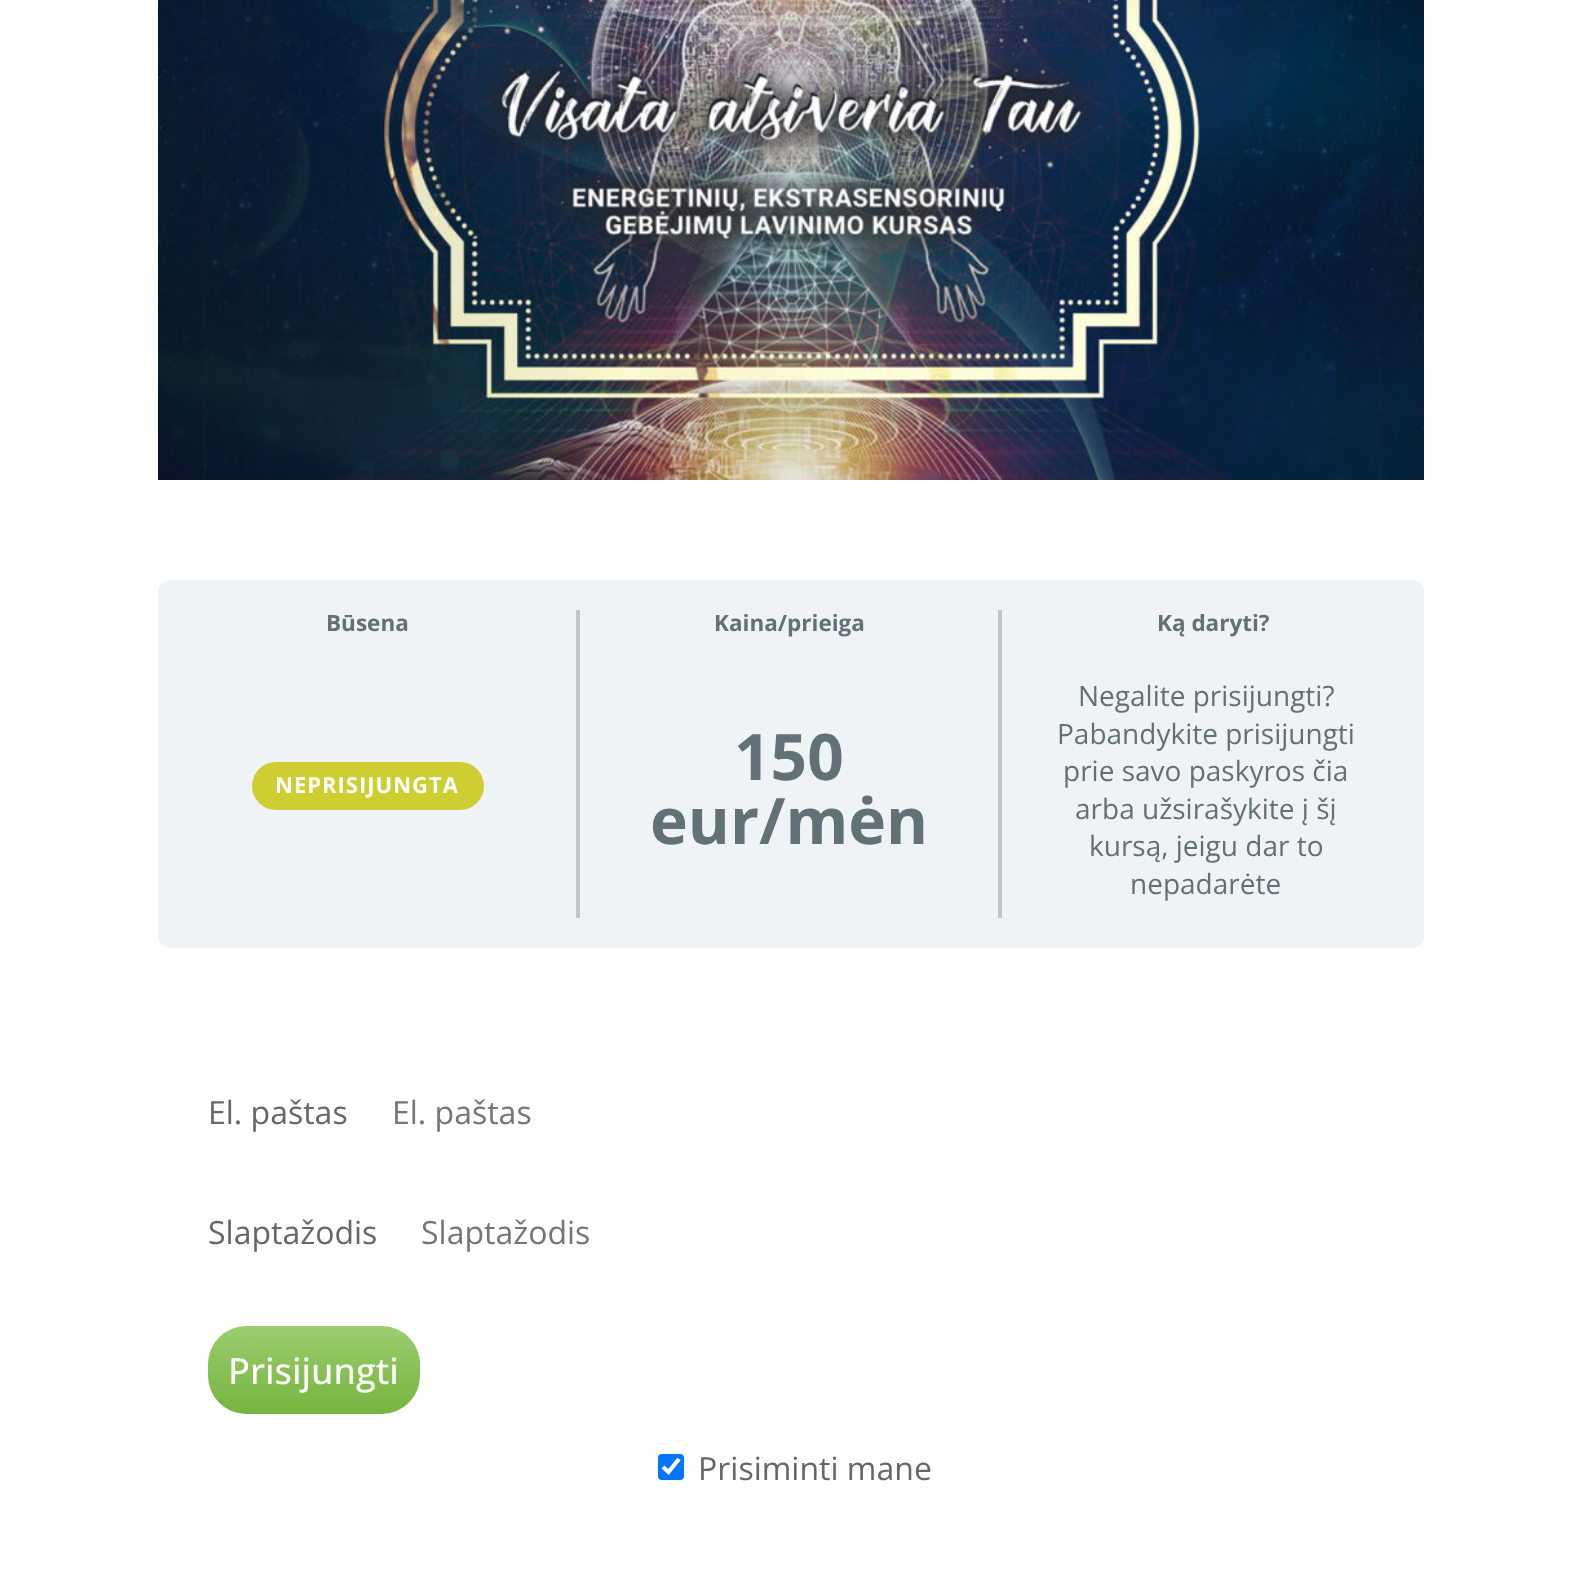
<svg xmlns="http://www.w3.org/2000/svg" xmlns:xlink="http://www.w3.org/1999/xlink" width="1582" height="1578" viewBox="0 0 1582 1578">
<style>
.cls-1{font:bold 22.5px Open Sans;fill:#617175}
.cls-2{font:bold 22px Open Sans;letter-spacing:1px;fill:#ffffff}
.cls-3{font:bold 64px Open Sans;fill:#617175}
.cls-4{font:28px Open Sans;fill:#617175}
.cls-5{font:32px Open Sans;fill:#666666}
.cls-6{font:32px Open Sans;fill:#757575}
.cls-7{font:500 36px Open Sans;fill:#ffffff}
</style>
<defs>
<linearGradient id="g1" gradientUnits="userSpaceOnUse" x1="314" y1="1326" x2="314" y2="1414"><stop offset="0" stop-color="#9bcd6e"/><stop offset="1" stop-color="#76b43f"/></linearGradient>
</defs>
<rect width="100%" height="100%" fill="#ffffff"/>
<image xlink:href="image0.png" x="158" y="0" width="1266" height="480"/>
<rect fill="#f0f3f6" x="158" y="580" width="1266" height="368" rx="12"/>
<rect fill="#bec5cb" x="576" y="610" width="4" height="308"/>
<rect fill="#cece33" x="252" y="762" width="232" height="48" rx="24"/>
<rect fill="#bec5cb" x="998" y="610" width="4" height="308"/>
<rect fill="url(#g1)" x="208" y="1326" width="212" height="88" rx="38"/>
<rect fill="#0075ff" x="658" y="1454" width="26" height="26" rx="4"/>
<path fill="none" stroke="#ffffff" stroke-width="4.2" d="M663 1467L668.5 1472L679 1459"/>
<text class="cls-1" x="326" y="631">Būsena</text>
<text class="cls-2" x="275" y="793">NEPRISIJUNGTA</text>
<text class="cls-1" x="714" y="631">Kaina/prieiga</text>
<text class="cls-3" x="734" y="780">150</text>
<text class="cls-3" x="650" y="844">eur/mėn</text>
<text class="cls-1" x="1157" y="631">Ką daryti?</text>
<text class="cls-4" x="1078" y="706">Negalite prisijungti?</text>
<text class="cls-4" x="1057" y="744">Pabandykite prisijungti</text>
<text class="cls-4" x="1063" y="781">prie savo paskyros čia</text>
<text class="cls-4" x="1075" y="819">arba užsirašykite į šį</text>
<text class="cls-4" x="1089" y="856">kursą, jeigu dar to</text>
<text class="cls-4" x="1130" y="894">nepadarėte</text>
<text class="cls-5" x="208" y="1124">El. paštas</text>
<text class="cls-6" x="392" y="1124">El. paštas</text>
<text class="cls-5" x="208" y="1244">Slaptažodis</text>
<text class="cls-6" x="421" y="1244">Slaptažodis</text>
<text class="cls-7" x="228" y="1384">Prisijungti</text>
<text class="cls-5" x="698" y="1480">Prisiminti mane</text>
</svg>
